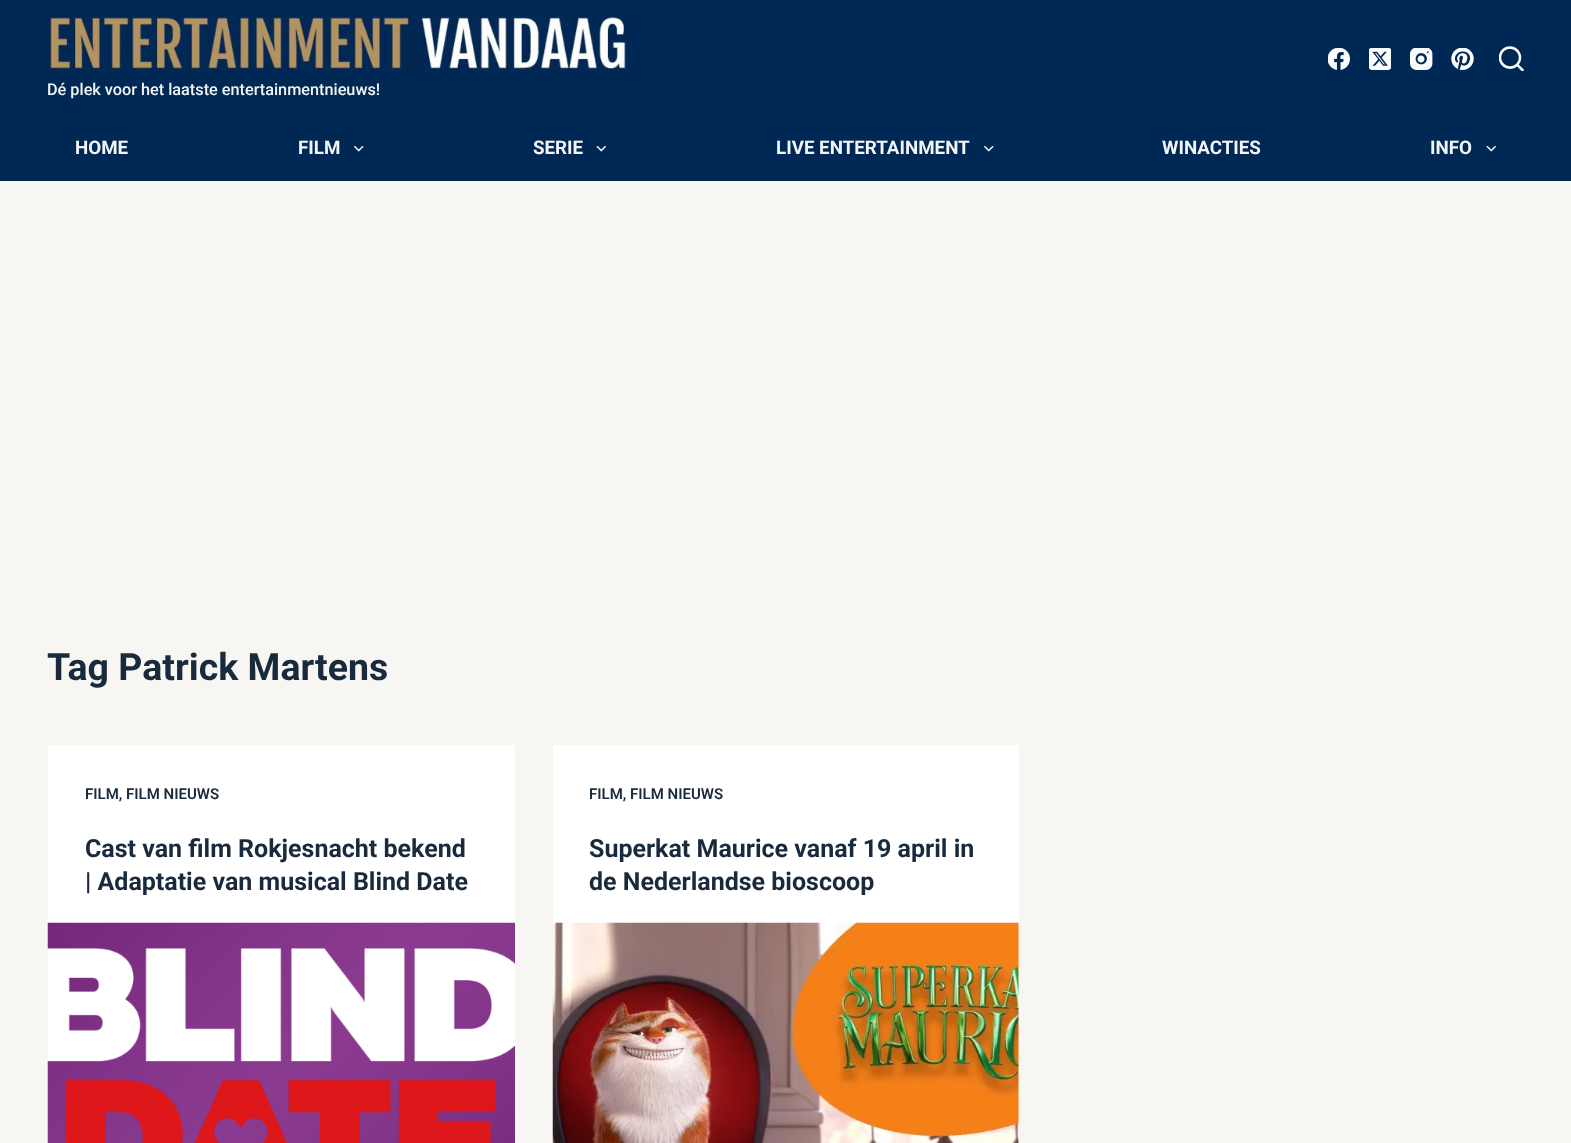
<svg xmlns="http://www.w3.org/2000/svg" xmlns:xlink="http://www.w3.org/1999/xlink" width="1571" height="1143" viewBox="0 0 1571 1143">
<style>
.cls-1{font:500 16.25px Roboto;fill:#f2f5f7}
.cls-2{font:bold 18.75px Roboto;fill:#f2f5f7}
.cls-3{font:bold 37.5px Roboto;fill:#192a3d}
.cls-4{font:600 15px Roboto;fill:#192a3d}
.cls-5{font:bold 25px Roboto;fill:#192a3d}
</style>
<rect width="100%" height="100%" fill="#f7f6f2"/>
<rect fill="#002854" x="0" y="0" width="1571" height="181"/>
<image xlink:href="image0.png" x="1328" y="48" width="22" height="22"/>
<image xlink:href="image1.png" x="1369" y="48" width="22" height="22"/>
<image xlink:href="image2.png" x="1410" y="48" width="23" height="22"/>
<image xlink:href="image3.png" x="1451" y="48" width="23" height="22"/>
<image xlink:href="image4.png" x="1499" y="46" width="25" height="25"/>
<image xlink:href="image5.png" x="47" y="14" width="580" height="58"/>
<image xlink:href="image6.png" x="354" y="146" width="10" height="6"/>
<image xlink:href="image7.png" x="596" y="146" width="10" height="6"/>
<image xlink:href="image6.png" x="984" y="146" width="10" height="6"/>
<image xlink:href="image7.png" x="1486" y="146" width="10" height="6"/>
<rect fill="#ffffff" x="48" y="745" width="467" height="178"/>
<image xlink:href="image8.png" x="47" y="922" width="468" height="221"/>
<rect fill="#ffffff" x="553" y="745" width="466" height="398"/>
<image xlink:href="image9.png" x="552" y="922" width="467" height="221"/>
<text class="cls-1" x="47" y="95">Dé plek voor het laatste entertainmentnieuws!</text>
<text class="cls-2" x="75" y="154">HOME</text>
<text class="cls-2" x="298" y="154">FILM</text>
<text class="cls-2" x="533" y="154">SERIE</text>
<text class="cls-2" x="776" y="154">LIVE ENTERTAINMENT</text>
<text class="cls-2" x="1162" y="154">WINACTIES</text>
<text class="cls-2" x="1430" y="154">INFO</text>
<text class="cls-3" x="47" y="680">Tag Patrick Martens</text>
<text class="cls-4" x="85" y="799">FILM, FILM NIEUWS</text>
<text class="cls-5"><tspan x="85" y="857">Cast van film Rokjesnacht bekend</tspan><tspan x="85" y="890">| Adaptatie van musical Blind Date</tspan></text>
<text class="cls-4" x="589" y="799">FILM, FILM NIEUWS</text>
<text class="cls-5"><tspan x="589" y="857">Superkat Maurice vanaf 19 april in</tspan><tspan x="589" y="890">de Nederlandse bioscoop</tspan></text>
</svg>
